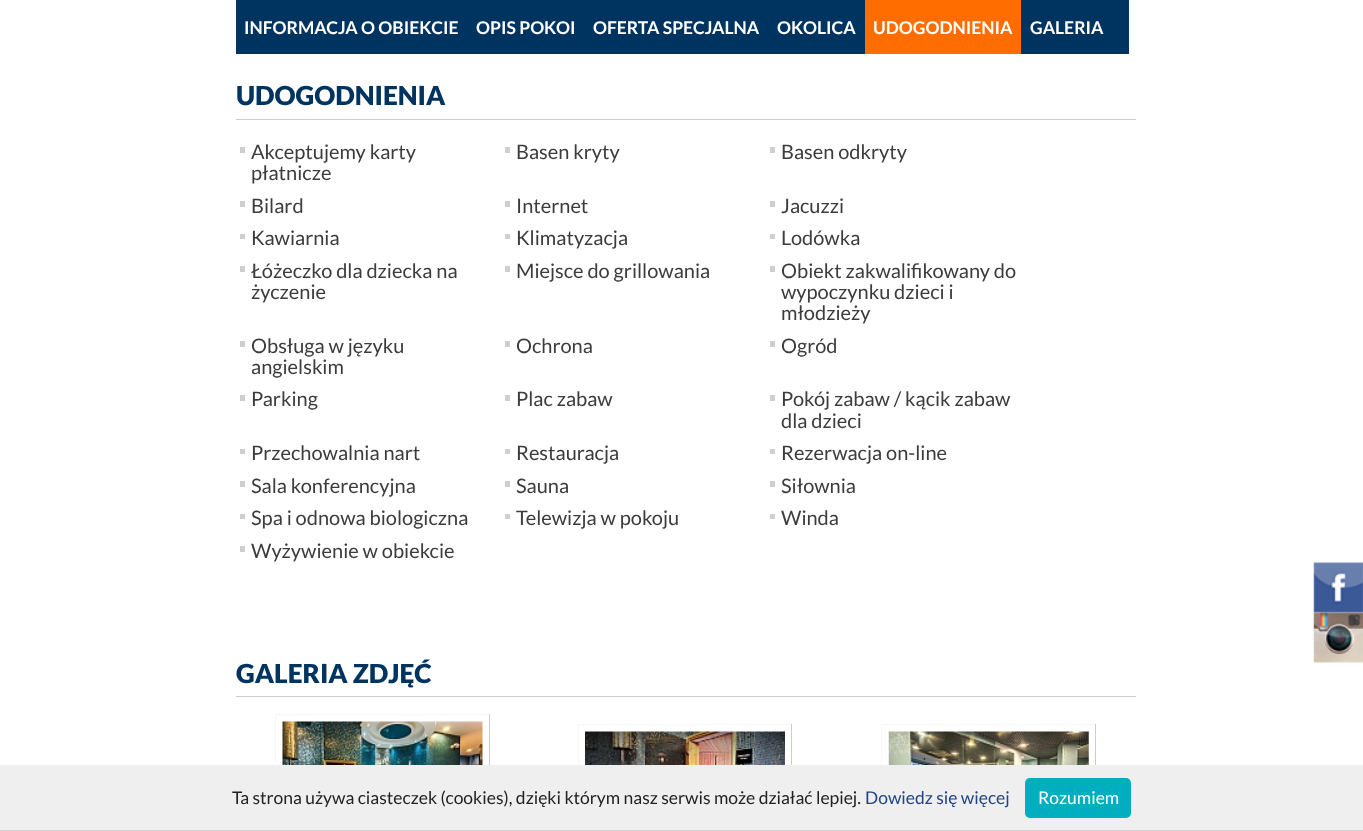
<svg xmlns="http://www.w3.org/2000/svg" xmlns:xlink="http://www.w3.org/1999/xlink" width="1363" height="831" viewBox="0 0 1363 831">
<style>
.cls-1{font:bold 17.5px Lato;fill:#ffffff}
.cls-2{font:900 26.25px Lato;fill:#003460}
.cls-3{font:20px Lato;fill:#3c3c3c}
.cls-4{font:17.5px Lato;fill:#222222}
.cls-5{font:17.5px Lato;fill:#214585}
.cls-6{font:17.5px Lato;fill:#ffffff}
</style>
<rect width="100%" height="100%" fill="#ffffff"/>
<rect fill="#003460" x="236" y="0" width="893" height="54"/>
<rect fill="#ff6d00" x="865" y="0" width="156" height="54"/>
<rect fill="#cccccc" x="236" y="119" width="900" height="1"/>
<rect fill="#cfcfcf" x="240" y="147" width="5" height="6"/>
<rect fill="#cfcfcf" x="505" y="147" width="5" height="6"/>
<rect fill="#cfcfcf" x="770" y="147" width="5" height="6"/>
<rect fill="#cfcfcf" x="240" y="201" width="5" height="6"/>
<rect fill="#cfcfcf" x="505" y="201" width="5" height="6"/>
<rect fill="#cfcfcf" x="770" y="201" width="5" height="6"/>
<rect fill="#cfcfcf" x="240" y="234" width="5" height="5"/>
<rect fill="#cfcfcf" x="505" y="234" width="5" height="5"/>
<rect fill="#cfcfcf" x="770" y="234" width="5" height="5"/>
<rect fill="#cfcfcf" x="240" y="266" width="5" height="6"/>
<rect fill="#cfcfcf" x="505" y="266" width="5" height="6"/>
<rect fill="#cfcfcf" x="770" y="266" width="5" height="6"/>
<rect fill="#cfcfcf" x="240" y="341" width="5" height="6"/>
<rect fill="#cfcfcf" x="505" y="341" width="5" height="6"/>
<rect fill="#cfcfcf" x="770" y="341" width="5" height="6"/>
<rect fill="#cfcfcf" x="240" y="395" width="5" height="6"/>
<rect fill="#cfcfcf" x="505" y="395" width="5" height="6"/>
<rect fill="#cfcfcf" x="770" y="395" width="5" height="6"/>
<rect fill="#cfcfcf" x="240" y="449" width="5" height="5"/>
<rect fill="#cfcfcf" x="505" y="449" width="5" height="5"/>
<rect fill="#cfcfcf" x="770" y="449" width="5" height="5"/>
<rect fill="#cfcfcf" x="240" y="481" width="5" height="6"/>
<rect fill="#cfcfcf" x="505" y="481" width="5" height="6"/>
<rect fill="#cfcfcf" x="770" y="481" width="5" height="6"/>
<rect fill="#cfcfcf" x="240" y="514" width="5" height="5"/>
<rect fill="#cfcfcf" x="505" y="514" width="5" height="5"/>
<rect fill="#cfcfcf" x="770" y="514" width="5" height="5"/>
<rect fill="#cfcfcf" x="240" y="546" width="5" height="6"/>
<rect fill="#cccccc" x="236" y="696" width="900" height="1"/>
<rect fill="#f7f7f7" x="275" y="714" width="215" height="1"/>
<rect fill="#cccccc" x="489" y="714" width="1" height="51"/>
<rect fill="#f7f7f7" x="275" y="714" width="1" height="51"/>
<image xlink:href="image0.png" x="282" y="721" width="201" height="44"/>
<rect fill="#f7f7f7" x="578" y="724" width="215" height="1"/>
<rect fill="#cccccc" x="791" y="724" width="1" height="41"/>
<rect fill="#f7f7f7" x="578" y="724" width="1" height="41"/>
<image xlink:href="image1.png" x="585" y="731" width="200" height="34"/>
<rect fill="#f7f7f7" x="881" y="724" width="215" height="1"/>
<rect fill="#cccccc" x="1095" y="724" width="1" height="41"/>
<rect fill="#f7f7f7" x="881" y="724" width="1" height="41"/>
<image xlink:href="image2.png" x="888" y="731" width="201" height="34"/>
<image xlink:href="image3.png" x="1313" y="562" width="50" height="51"/>
<image xlink:href="image4.png" x="1313" y="612" width="50" height="51"/>
<rect fill="#efefef" x="0" y="765" width="1363" height="65"/>
<rect fill="#d3d0d0" x="0" y="830" width="1363" height="1"/>
<rect fill="#00afbf" x="1025" y="778" width="106" height="40" rx="5"/>
<text class="cls-1" x="244" y="34">INFORMACJA O OBIEKCIE</text>
<text class="cls-1" x="476" y="34">OPIS POKOI</text>
<text class="cls-1" x="593" y="34">OFERTA SPECJALNA</text>
<text class="cls-1" x="777" y="34">OKOLICA</text>
<text class="cls-1" x="873" y="34">UDOGODNIENIA</text>
<text class="cls-1" x="1030" y="34">GALERIA</text>
<text class="cls-2" x="236" y="105">UDOGODNIENIA</text>
<text class="cls-3"><tspan x="251" y="159">Akceptujemy karty</tspan><tspan x="251" y="180">płatnicze</tspan></text>
<text class="cls-3" x="516" y="159">Basen kryty</text>
<text class="cls-3" x="781" y="159">Basen odkryty</text>
<text class="cls-3" x="251" y="213">Bilard</text>
<text class="cls-3" x="516" y="213">Internet</text>
<text class="cls-3" x="781" y="213">Jacuzzi</text>
<text class="cls-3" x="251" y="245">Kawiarnia</text>
<text class="cls-3" x="516" y="245">Klimatyzacja</text>
<text class="cls-3" x="781" y="245">Lodówka</text>
<text class="cls-3"><tspan x="251" y="278">Łóżeczko dla dziecka na</tspan><tspan x="251" y="299">życzenie</tspan></text>
<text class="cls-3" x="516" y="278">Miejsce do grillowania</text>
<text class="cls-3"><tspan x="781" y="278">Obiekt zakwalifikowany do</tspan><tspan x="781" y="299">wypoczynku dzieci i</tspan><tspan x="781" y="320">młodzieży</tspan></text>
<text class="cls-3"><tspan x="251" y="353">Obsługa w języku</tspan><tspan x="251" y="374">angielskim</tspan></text>
<text class="cls-3" x="516" y="353">Ochrona</text>
<text class="cls-3" x="781" y="353">Ogród</text>
<text class="cls-3" x="251" y="406">Parking</text>
<text class="cls-3" x="516" y="406">Plac zabaw</text>
<text class="cls-3"><tspan x="781" y="406">Pokój zabaw / kącik zabaw</tspan><tspan x="781" y="428">dla dzieci</tspan></text>
<text class="cls-3" x="251" y="460">Przechowalnia nart</text>
<text class="cls-3" x="516" y="460">Restauracja</text>
<text class="cls-3" x="781" y="460">Rezerwacja on-line</text>
<text class="cls-3" x="251" y="493">Sala konferencyjna</text>
<text class="cls-3" x="516" y="493">Sauna</text>
<text class="cls-3" x="781" y="493">Siłownia</text>
<text class="cls-3" x="251" y="525">Spa i odnowa biologiczna</text>
<text class="cls-3" x="516" y="525">Telewizja w pokoju</text>
<text class="cls-3" x="781" y="525">Winda</text>
<text class="cls-3" x="251" y="558">Wyżywienie w obiekcie</text>
<text class="cls-2" x="236" y="683">GALERIA ZDJĘĆ</text>
<text class="cls-4" x="232" y="804">Ta strona używa ciasteczek (cookies), dzięki którym nasz serwis może działać lepiej.</text>
<text class="cls-5" x="865" y="804">Dowiedz się więcej</text>
<text class="cls-6" x="1038" y="804">Rozumiem</text>
</svg>
